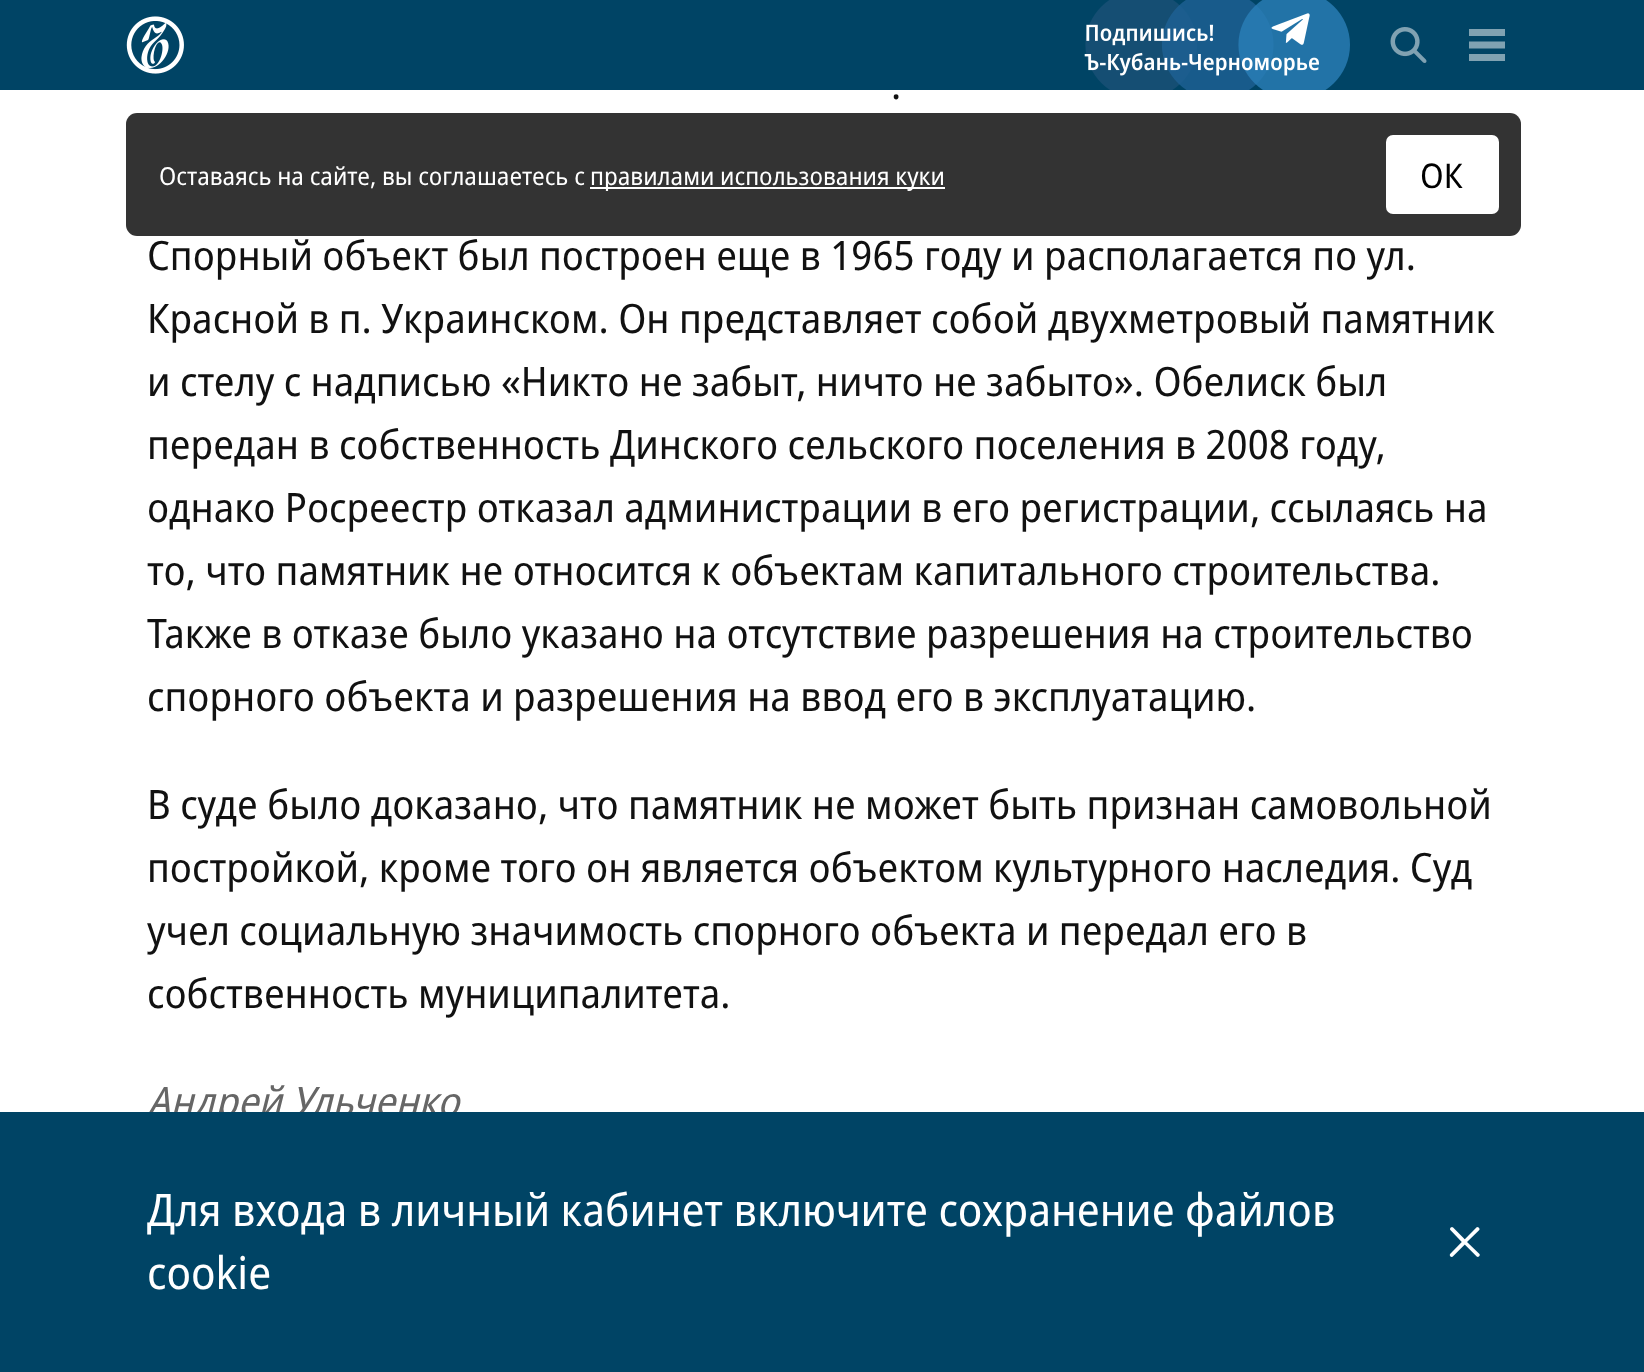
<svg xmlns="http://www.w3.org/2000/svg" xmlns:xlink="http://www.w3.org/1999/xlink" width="1644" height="1372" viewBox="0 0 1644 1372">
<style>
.cls-1{font:40.5px Noto Sans;fill:#111111}
.cls-2{font:italic 40.5px Noto Sans;fill:#666666}
.cls-3{font:24.75px Noto Sans;fill:#ffffff}
.cls-4{font:34px Noto Sans;fill:#000000}
.cls-5{font:45px Noto Sans;fill:#ffffff}
</style>
<rect width="100%" height="100%" fill="#ffffff"/>
<rect fill="#ffffff" fill-opacity="0.2" filter="blur(11px)" x="0" y="0" width="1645" height="90"/>
<rect fill="#004465" x="0" y="0" width="1644" height="90"/>
<image xlink:href="image0.png" x="126" y="16" width="58" height="58"/>
<image xlink:href="image1.png" x="1084" y="0" width="266" height="90"/>
<image xlink:href="image2.png" x="1390" y="27" width="37" height="36"/>
<path fill="#80a2b2" d="M1505 29V36H1469V29ZM1469 48.5H1505V41.5H1469ZM1469 61H1505V54H1469Z"/>
<rect fill="#000000" fill-opacity="0.8" x="126" y="113" width="1395" height="123" rx="11"/>
<rect fill="#ffffff" x="590" y="187" width="355" height="2"/>
<rect fill="#ffffff" x="1386" y="135" width="113" height="79" rx="7"/>
<text class="cls-1" x="891" y="99">.</text>
<text class="cls-1"><tspan x="147" y="270">Спорный объект был построен еще в 1965 году и располагается по ул.</tspan><tspan x="147" y="333">Красной в п. Украинском. Он представляет собой двухметровый памятник</tspan><tspan x="147" y="396">и стелу с надписью «Никто не забыт, ничто не забыто». Обелиск был</tspan><tspan x="147" y="459">передан в собственность Динского сельского поселения в 2008 году,</tspan><tspan x="147" y="522">однако Росреестр отказал администрации в его регистрации, ссылаясь на</tspan><tspan x="147" y="585">то, что памятник не относится к объектам капитального строительства.</tspan><tspan x="147" y="648">Также в отказе было указано на отсутствие разрешения на строительство</tspan><tspan x="147" y="711">спорного объекта и разрешения на ввод его в эксплуатацию.</tspan></text>
<text class="cls-1"><tspan x="147" y="819">В суде было доказано, что памятник не может быть признан самовольной</tspan><tspan x="147" y="882">постройкой, кроме того он является объектом культурного наследия. Суд</tspan><tspan x="147" y="945">учел социальную значимость спорного объекта и передал его в</tspan><tspan x="147" y="1008">собственность муниципалитета.</tspan></text>
<text class="cls-2" x="147" y="1116">Андрей Ульченко</text>
<text class="cls-3" x="159" y="185">Оставаясь на сайте, вы соглашаетесь с</text>
<text class="cls-3" x="590" y="185">правилами использования куки</text>
<text class="cls-4" x="1420" y="188">ОК</text>
<rect fill="#004465" x="0" y="1112" width="1644" height="260"/>
<text class="cls-5"><tspan x="147" y="1226">Для входа в личный кабинет включите сохранение файлов</tspan><tspan x="147" y="1289">cookie</tspan></text>
<image xlink:href="image3.png" x="1449" y="1227" width="31" height="30"/>
</svg>
